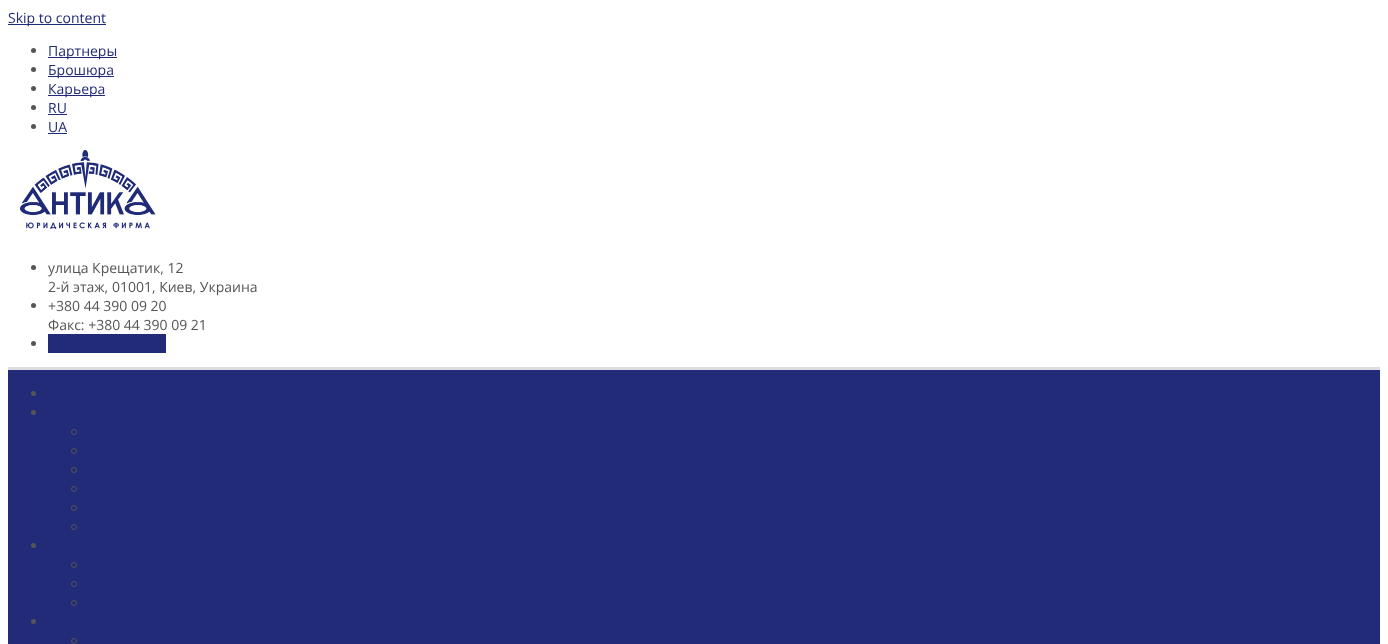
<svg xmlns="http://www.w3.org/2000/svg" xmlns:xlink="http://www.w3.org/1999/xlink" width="1388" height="644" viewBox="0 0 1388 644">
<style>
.cls-1{font:14px Open Sans;fill:#212b77}
.cls-2{font:14px Open Sans;fill:#555555}
</style>
<rect width="100%" height="100%" fill="#ffffff"/>
<rect fill="#212b77" x="8" y="24" width="98" height="1"/>
<circle fill="#555555" cx="33.5" cy="50.5" r="2.5"/>
<rect fill="#212b77" x="48" y="57" width="69" height="1"/>
<circle fill="#555555" cx="33.5" cy="69.5" r="2.5"/>
<rect fill="#212b77" x="48" y="76" width="66" height="1"/>
<circle fill="#555555" cx="33.5" cy="88.5" r="2.5"/>
<rect fill="#212b77" x="48" y="95" width="57" height="1"/>
<circle fill="#555555" cx="33.5" cy="107.5" r="2.5"/>
<rect fill="#212b77" x="48" y="114" width="19" height="1"/>
<circle fill="#555555" cx="33.5" cy="126.5" r="2.5"/>
<rect fill="#212b77" x="48" y="133" width="19" height="1"/>
<image xlink:href="image0.png" x="20" y="150" width="136" height="79"/>
<circle fill="#555555" cx="33.5" cy="267.5" r="2.5"/>
<circle fill="#555555" cx="33.5" cy="305.5" r="2.5"/>
<circle fill="#555555" cx="33.5" cy="343.5" r="2.5"/>
<rect fill="#212b77" x="48" y="334" width="118" height="19"/>
<rect fill="#212b77" x="8" y="370" width="1372" height="274"/>
<rect fill="#dddddd" x="8" y="367" width="1372" height="3"/>
<circle fill="#555555" cx="33.5" cy="393.5" r="2.5"/>
<circle fill="#555555" cx="33.5" cy="412.5" r="2.5"/>
<circle fill="none" stroke="#555555" cx="74" cy="432" r="2.5"/>
<circle fill="none" stroke="#555555" cx="74" cy="451" r="2.5"/>
<circle fill="none" stroke="#555555" cx="74" cy="470" r="2.5"/>
<circle fill="none" stroke="#555555" cx="74" cy="489" r="2.5"/>
<circle fill="none" stroke="#555555" cx="74" cy="508" r="2.5"/>
<circle fill="none" stroke="#555555" cx="74" cy="527" r="2.5"/>
<circle fill="#555555" cx="33.5" cy="545.5" r="2.5"/>
<circle fill="none" stroke="#555555" cx="74" cy="565" r="2.5"/>
<circle fill="none" stroke="#555555" cx="74" cy="584" r="2.5"/>
<circle fill="none" stroke="#555555" cx="74" cy="603" r="2.5"/>
<circle fill="#555555" cx="33.5" cy="621.5" r="2.5"/>
<circle fill="none" stroke="#555555" cx="74" cy="641" r="2.5"/>
<text class="cls-1" x="8" y="23">Skip to content</text>
<text class="cls-1"><tspan x="48" y="56">Партнеры</tspan><tspan x="48" y="75">Брошюра</tspan><tspan x="48" y="94">Карьера</tspan><tspan x="48" y="113">RU</tspan><tspan x="48" y="132">UA</tspan></text>
<text class="cls-2"><tspan x="48" y="273">улица Крещатик, 12</tspan><tspan x="48" y="292">2-й этаж, 01001, Киев, Украина</tspan><tspan x="48" y="311">+380 44 390 09 20</tspan><tspan x="48" y="330">Факс: +380 44 390 09 21</tspan></text>
</svg>
